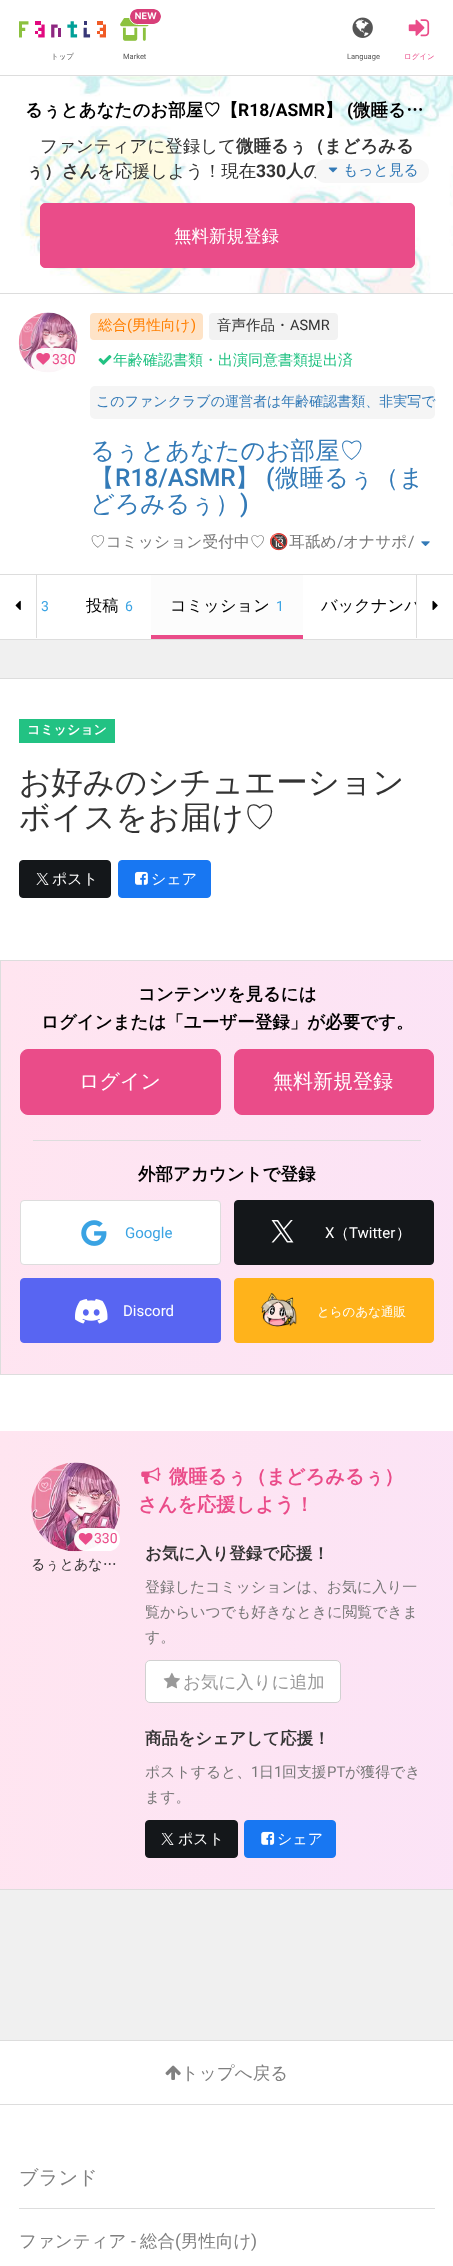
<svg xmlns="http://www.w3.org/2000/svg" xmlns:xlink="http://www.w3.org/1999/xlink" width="453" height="2266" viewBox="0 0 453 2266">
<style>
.cls-1{font:500 7.5px WenQuanYi Zen Hei;fill:#555555}
.cls-2{font:7.5px Roboto;fill:#555555}
.cls-3{font:500 7.5px WenQuanYi Zen Hei;fill:#ea4c89}
.cls-4{font:bold 17.5px WenQuanYi Zen Hei;fill:#000000}
.cls-5{font:bold 17.5px Roboto;fill:#000000}
.cls-6{font:500 17.5px WenQuanYi Zen Hei;fill:#333333}
.cls-7{font:bold 17.5px WenQuanYi Zen Hei;fill:#333333}
.cls-8{font:bold 17.5px Roboto;fill:#333333}
.cls-9{font:500 14.9px WenQuanYi Zen Hei;fill:#337ab7}
.cls-10{font:500 17.5px WenQuanYi Zen Hei;fill:#ffffff}
.cls-11{font:14px Roboto;fill:#ea4c89}
.cls-12{font:500 14.5px WenQuanYi Zen Hei;fill:#ff7f00}
.cls-13{font:14.5px Roboto;fill:#ff7f00}
.cls-14{font:500 14.5px WenQuanYi Zen Hei;fill:#333333}
.cls-15{font:14.5px Roboto;fill:#333333}
.cls-16{font:500 15px WenQuanYi Zen Hei;fill:#22c283}
.cls-17{font:500 14px WenQuanYi Zen Hei;fill:#337ab7}
.cls-18{font:500 24.5px WenQuanYi Zen Hei;fill:#337ab7}
.cls-19{font:500 24.5px Roboto;fill:#337ab7}
.cls-20{font:500 15.75px WenQuanYi Zen Hei;fill:#777777}
.cls-21{font:15.75px Noto Color Emoji;fill:#777777}
.cls-22{font:15.75px Roboto;fill:#777777}
.cls-23{font:14px Roboto;fill:#3aa3e3}
.cls-24{font:500 16.25px WenQuanYi Zen Hei;fill:#000000}
.cls-25{font:bold 13px WenQuanYi Zen Hei;fill:#ffffff}
.cls-26{font:500 31.5px WenQuanYi Zen Hei;fill:#333333}
.cls-27{font:500 15px WenQuanYi Zen Hei;fill:#ffffff}
.cls-28{font:500 20px WenQuanYi Zen Hei;fill:#ffffff}
.cls-29{font:15px Roboto;fill:#3aa3e3}
.cls-30{font:15px Roboto;fill:#ffffff}
.cls-31{font:500 12.5px WenQuanYi Zen Hei;fill:#ffffff}
.cls-32{font:500 14px WenQuanYi Zen Hei;fill:#333333}
.cls-33{font:bold 19.25px WenQuanYi Zen Hei;fill:#ea4c89}
.cls-34{font:bold 16.6px WenQuanYi Zen Hei;fill:#333333}
.cls-35{font:500 14.9px WenQuanYi Zen Hei;fill:#777777}
.cls-36{font:500 17.5px WenQuanYi Zen Hei;fill:#999999}
.cls-37{font:14.9px Roboto;fill:#777777}
.cls-38{font:500 17.5px WenQuanYi Zen Hei;fill:#808080}
.cls-39{font:500 19.25px WenQuanYi Zen Hei;fill:#808080}
.cls-40{font:17.5px Roboto;fill:#808080}
</style>
<defs>
<linearGradient id="g1" gradientUnits="userSpaceOnUse" x1="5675" y1="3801" x2="-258" y2="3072"><stop offset="0" stop-color="#fffde5"/><stop offset="0.2" stop-color="#e9ffda"/><stop offset="0.4" stop-color="#dffbff"/><stop offset="0.6" stop-color="#ecefff"/><stop offset="0.8" stop-color="#f6e1ff"/><stop offset="1" stop-color="#ffe5f0"/></linearGradient>
<linearGradient id="g2" gradientUnits="userSpaceOnUse" x1="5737" y1="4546" x2="-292" y2="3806"><stop offset="0" stop-color="#fffde5"/><stop offset="0.2" stop-color="#e9ffda"/><stop offset="0.4" stop-color="#dffbff"/><stop offset="0.6" stop-color="#ecefff"/><stop offset="0.8" stop-color="#f6e1ff"/><stop offset="1" stop-color="#ffe5f0"/></linearGradient>
</defs>
<rect width="100%" height="100%" fill="#f0f0f0"/>
<rect fill="#ffffff" x="0" y="0" width="453" height="75"/>
<rect fill="#dddddd" x="0" y="75" width="453" height="1"/>
<image xlink:href="image0.png" x="19" y="21" width="87" height="17"/>
<image xlink:href="image2.png" x="120" y="18" width="29" height="23"/>
<rect fill="none" stroke="#ffffff" x="129.5" y="8.5" width="33" height="16" rx="8"/>
<image xlink:href="image1.png" x="130" y="9" width="31" height="15"/>
<image xlink:href="image3.png" x="352" y="17" width="21" height="21"/>
<image xlink:href="image4.png" x="408" y="19" width="22" height="18"/>
<rect fill="#ffffff" x="0" y="76" width="453" height="217"/>
<image xlink:href="image5.png" x="20" y="76" width="433" height="217"/>
<rect fill="#dddddd" x="0" y="293" width="453" height="1"/>
<rect fill="#ea4c89" stroke="#ea4c89" x="40.5" y="203.5" width="374" height="64" rx="4.5"/>
<rect fill="#ffffff" x="0" y="294" width="453" height="280"/>
<rect fill="#dddddd" x="0" y="574" width="453" height="1"/>
<image xlink:href="image7.png" x="18" y="312" width="60" height="61"/>
<rect fill="#ffffff" fill-opacity="0.95" x="31" y="348" width="47" height="25" rx="12.5"/>
<image xlink:href="image8.png" x="36" y="353" width="14" height="12"/>
<rect fill="#fee3c7" x="90" y="313" width="113" height="27" rx="4"/>
<rect fill="#f2f2f2" x="209" y="313" width="129" height="27" rx="4"/>
<image xlink:href="image9.png" x="98" y="355" width="14" height="10"/>
<rect fill="#f5f5f5" x="90" y="386" width="345" height="33" rx="5"/>
<image xlink:href="image10.png" x="421" y="541" width="9" height="5"/>
<rect fill="#ffffff" x="0" y="575" width="453" height="64"/>
<rect fill="#dddddd" x="0" y="639" width="453" height="1"/>
<rect fill="#dddddd" x="36" y="575" width="1" height="63"/>
<image xlink:href="image11.png" x="15" y="600" width="6" height="10"/>
<rect fill="#fcfcfc" x="151" y="575" width="152" height="60"/>
<rect fill="#ea4c89" x="151" y="635" width="152" height="4"/>
<image xlink:href="image12.png" x="432" y="600" width="6" height="10"/>
<rect fill="#ffffff" x="0" y="679" width="453" height="752"/>
<rect fill="#dddddd" x="0" y="678" width="453" height="1"/>
<rect fill="#dddddd" x="0" y="1889" width="453" height="1"/>
<rect fill="#22c283" x="19" y="719" width="96" height="24"/>
<rect fill="#14171a" stroke="#14171a" x="19.5" y="860.5" width="91" height="37" rx="3.5"/>
<image xlink:href="image13.png" x="36" y="873" width="13" height="12"/>
<rect fill="#1877f2" stroke="#1877f2" x="118.5" y="860.5" width="92" height="37" rx="3.5"/>
<image xlink:href="image14.png" x="135" y="871" width="13" height="14"/>
<rect fill="url(#g1)" x="1" y="961" width="452" height="413"/>
<rect fill="none" stroke="#dddddd" x="0.5" y="960.5" width="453" height="414"/>
<rect fill="#ea4c89" stroke="#ea4c89" x="20.5" y="1049.5" width="200" height="65" rx="7.5"/>
<rect fill="#ea4c89" stroke="#ea4c89" x="234.5" y="1049.5" width="199" height="65" rx="7.5"/>
<rect fill="#dddddd" x="33" y="1140" width="388" height="1"/>
<rect fill="#ffffff" stroke="#dddddd" x="20.5" y="1200.5" width="200" height="64" rx="3.5"/>
<image xlink:href="image15.png" x="81" y="1220" width="26" height="26"/>
<rect fill="#14171a" stroke="#14171a" x="234.5" y="1200.5" width="199" height="64" rx="3.5"/>
<image xlink:href="image16.png" x="271" y="1220" width="23" height="23"/>
<rect fill="#5865f2" stroke="#5865f2" x="20.5" y="1278.5" width="200" height="64" rx="3.5"/>
<image xlink:href="image17.png" x="75" y="1299" width="33" height="25"/>
<rect fill="#ffb31b" stroke="#ffb31b" x="234.5" y="1278.5" width="199" height="64" rx="3.5"/>
<image xlink:href="image18.png" x="261" y="1293" width="36" height="34"/>
<rect fill="url(#g2)" x="0" y="1431" width="453" height="458"/>
<image xlink:href="image19.png" x="31" y="1462" width="89" height="90"/>
<rect fill="#ffffff" fill-opacity="0.95" x="74" y="1528" width="46" height="23" rx="11.5"/>
<image xlink:href="image20.png" x="78" y="1533" width="15" height="12"/>
<image xlink:href="image21.png" x="141" y="1467" width="20" height="17"/>
<rect fill="#ffffff" stroke="#d1d1d1" x="145.5" y="1660.5" width="195" height="42" rx="4.5"/>
<image xlink:href="image22.png" x="163" y="1672" width="17" height="17"/>
<rect fill="#14171a" stroke="#14171a" x="145.5" y="1820.5" width="92" height="37" rx="3.5"/>
<image xlink:href="image13.png" x="161" y="1833" width="13" height="12"/>
<rect fill="#1877f2" stroke="#1877f2" x="244.5" y="1820.5" width="91" height="37" rx="3.5"/>
<image xlink:href="image23.png" x="261" y="1831" width="14" height="14"/>
<rect fill="#ffffff" x="0" y="2041" width="453" height="63"/>
<rect fill="#dddddd" x="0" y="2040" width="453" height="1"/>
<image xlink:href="image24.png" x="165" y="2065" width="16" height="15"/>
<rect fill="#ffffff" x="0" y="2105" width="453" height="161"/>
<rect fill="#dddddd" x="0" y="2104" width="453" height="1"/>
<rect fill="#dddddd" x="19" y="2208" width="416" height="1"/>
<text class="cls-1" x="51" y="59">トップ</text>
<text class="cls-2" x="123" y="59">Market</text>
<text class="cls-2" x="347" y="59">Language</text>
<text class="cls-3" x="404" y="59">ログイン</text>
<text class="cls-4" x="25" y="116">るぅとあなたのお部屋♡【</text>
<text class="cls-5" x="238" y="116">R18/ASMR</text>
<text class="cls-4" x="325" y="116">】</text>
<text class="cls-5" x="347" y="116">(</text>
<text class="cls-4" x="353" y="116">微睡る…</text>
<text class="cls-6" x="40" y="152">ファンティアに登録して</text>
<text class="cls-7" x="236" y="152">微睡るぅ（まどろみる</text>
<text class="cls-7" x="26" y="177">ぅ）さん</text>
<text class="cls-6" x="97" y="177">を応援しよう！現在</text>
<text class="cls-8" x="256" y="177">330</text>
<text class="cls-7" x="286" y="177">人の</text>
<rect fill="#f7f7f7" x="314" y="159" width="115" height="24" rx="12"/>
<image xlink:href="image6.png" x="328" y="167" width="10" height="6"/>
<text class="cls-9" x="343" y="175">もっと見る</text>
<text class="cls-10" x="174" y="242">無料新規登録</text>
<text class="cls-11" x="52" y="364">330</text>
<text class="cls-12" x="98" y="330">総合</text>
<text class="cls-13" x="127" y="330">(</text>
<text class="cls-12" x="132" y="330">男性向け</text>
<text class="cls-13" x="191" y="330">)</text>
<text class="cls-14" x="217" y="330">音声作品・</text>
<text class="cls-15" x="290" y="330">ASMR</text>
<text class="cls-16" x="113" y="365">年齢確認書類・出演同意書類提出済</text>
<text class="cls-17" x="96" y="406">このファンクラブの運営者は年齢確認書類、非実写で</text>
<text class="cls-18"><tspan x="90" y="459">るぅとあなたのお部屋♡</tspan><tspan x="90" y="486">【</tspan></text>
<text class="cls-19" x="115" y="486">R18/ASMR</text>
<text class="cls-18" x="235" y="486">】</text>
<text class="cls-19" x="266" y="486">(</text>
<text class="cls-18" x="275" y="486">微睡るぅ（ま</text>
<text class="cls-18" x="90" y="512">どろみるぅ）</text>
<text class="cls-19" x="240" y="512">)</text>
<text class="cls-20" x="90" y="547">♡コミッション受付中♡</text>
<text class="cls-21" x="269" y="547">🔞</text>
<text class="cls-20" x="289" y="547">耳舐め</text>
<text class="cls-22" x="337" y="547">/</text>
<text class="cls-20" x="343" y="547">オナサポ</text>
<text class="cls-22" x="408" y="547">/</text>
<text class="cls-23" x="41" y="611">3</text>
<text class="cls-24" x="86" y="611">投稿</text>
<text class="cls-23" x="125" y="611">6</text>
<text class="cls-24" x="170" y="611">コミッション</text>
<text class="cls-23" x="276" y="611">1</text>
<text class="cls-24" x="321" y="611">バックナンバ</text>
<rect fill="#ffffff" x="417" y="599" width="5" height="12"/>
<rect fill="#dddddd" x="416" y="575" width="1" height="63"/>
<text class="cls-25" x="27" y="734">コミッション</text>
<text class="cls-26"><tspan x="19" y="793">お好みのシチュエーション</tspan><tspan x="19" y="828">ボイスをお届け♡</tspan></text>
<text class="cls-27" x="52" y="884">ポスト</text>
<text class="cls-27" x="151" y="884">シェア</text>
<text class="cls-4" x="138" y="1000">コンテンツを見るには</text>
<text class="cls-4" x="41" y="1028">ログインまたは「ユーザー登録」が必要です。</text>
<text class="cls-28" x="79" y="1088">ログイン</text>
<text class="cls-28" x="273" y="1088">無料新規登録</text>
<text class="cls-4" x="138" y="1180">外部アカウントで登録</text>
<text class="cls-29" x="125" y="1238">Google</text>
<text class="cls-30" x="325" y="1238">X</text>
<text class="cls-27" x="334" y="1238">（</text>
<text class="cls-30" x="349" y="1238">Twitter</text>
<text class="cls-27" x="396" y="1238">）</text>
<text class="cls-30" x="123" y="1316">Discord</text>
<text class="cls-31" x="317" y="1316">とらのあな通販</text>
<text class="cls-11" x="94" y="1543">330</text>
<text class="cls-32" x="31" y="1569">るぅとあな…</text>
<text class="cls-33" x="169" y="1483">微睡るぅ（まどろみるぅ）</text>
<text class="cls-33" x="138" y="1511">さんを応援しよう！</text>
<text class="cls-34" x="145" y="1559">お気に入り登録で応援！</text>
<text class="cls-35"><tspan x="145" y="1592">登録したコミッションは、お気に入り一</tspan><tspan x="145" y="1617">覧からいつでも好きなときに閲覧できま</tspan><tspan x="145" y="1642">す。</tspan></text>
<text class="cls-36" x="183" y="1688">お気に入りに追加</text>
<text class="cls-34" x="145" y="1744">商品をシェアして応援！</text>
<text class="cls-35" x="145" y="1777">ポストすると、</text>
<text class="cls-37" x="251" y="1777">1</text>
<text class="cls-35" x="259" y="1777">日</text>
<text class="cls-37" x="274" y="1777">1</text>
<text class="cls-35" x="282" y="1777">回支援</text>
<text class="cls-37" x="327" y="1777">PT</text>
<text class="cls-35" x="345" y="1777">が獲得でき</text>
<text class="cls-35" x="145" y="1802">ます。</text>
<text class="cls-27" x="178" y="1844">ポスト</text>
<text class="cls-27" x="277" y="1844">シェア</text>
<text class="cls-38" x="181" y="2079">トップへ戻る</text>
<text class="cls-39" x="19" y="2184">ブランド</text>
<text class="cls-38" x="19" y="2247">ファンティア</text>
<text class="cls-40" x="131" y="2247">-</text>
<text class="cls-38" x="140" y="2247">総合</text>
<text class="cls-40" x="175" y="2247">(</text>
<text class="cls-38" x="181" y="2247">男性向け</text>
<text class="cls-40" x="251" y="2247">)</text>
</svg>
